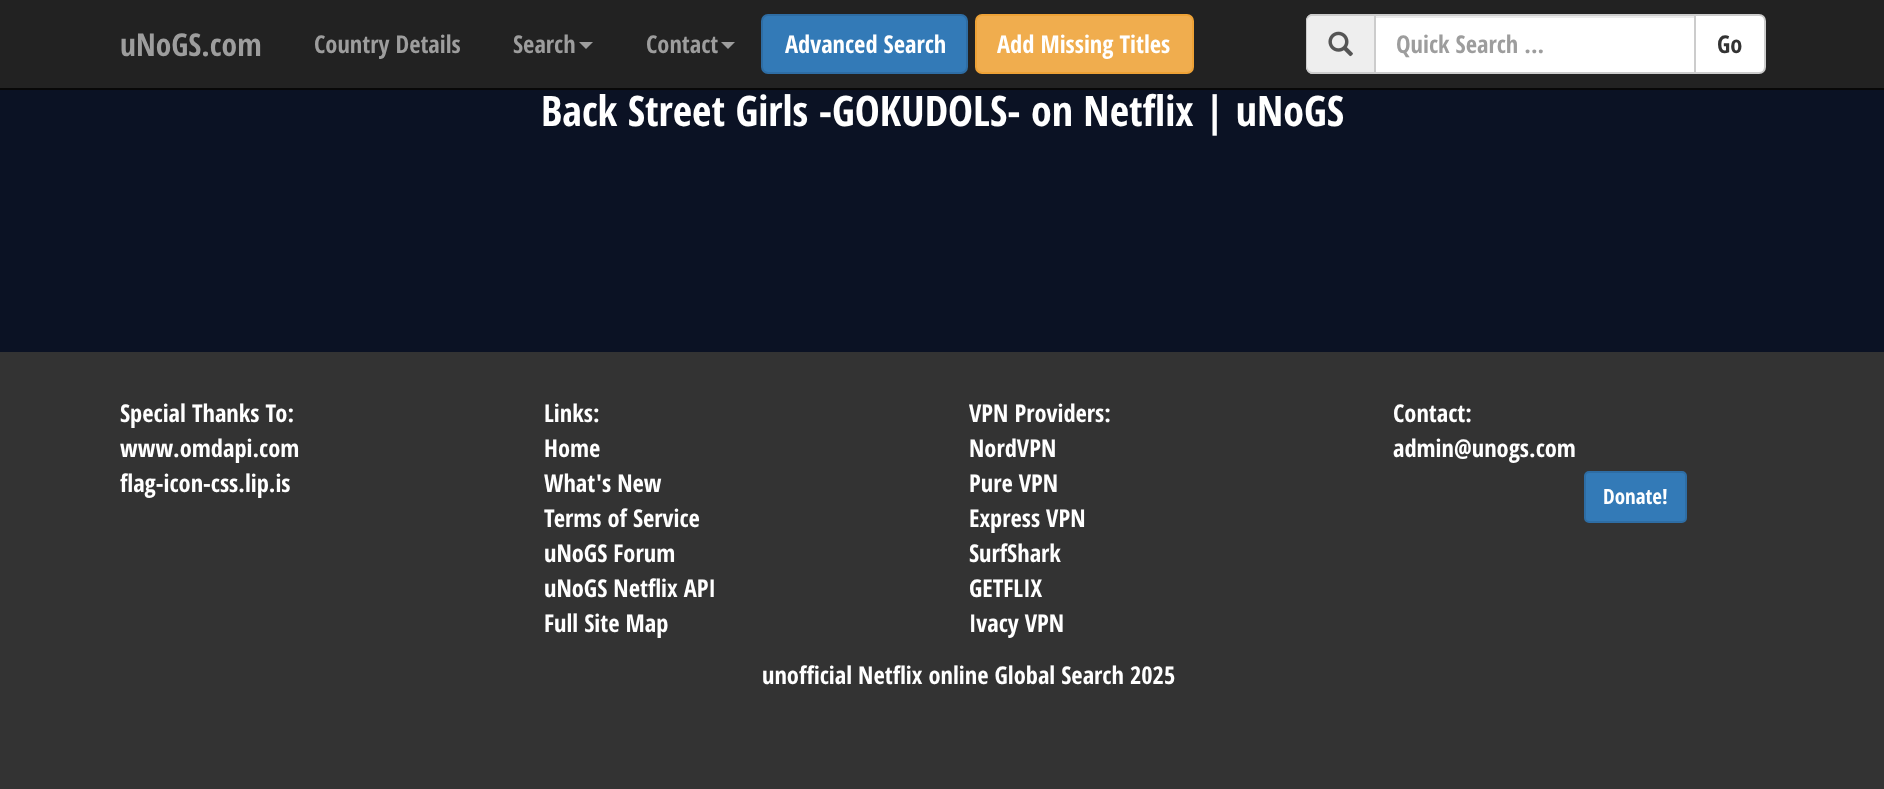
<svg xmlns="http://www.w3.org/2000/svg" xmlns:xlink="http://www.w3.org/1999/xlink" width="1884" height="789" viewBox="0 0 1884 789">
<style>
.cls-1{font:bold 31.5px Open Sans Condensed;fill:#9d9d9d}
.cls-2{font:bold 24.5px Open Sans Condensed;fill:#9d9d9d}
.cls-3{font:bold 24.5px Open Sans Condensed;fill:#ffffff}
.cls-4{font:bold 24.5px Open Sans Condensed;fill:#333333}
.cls-5{font:bold 42px Open Sans Condensed;fill:#ffffff}
.cls-6{font:bold 21px Open Sans Condensed;fill:#ffffff}
</style>
<rect width="100%" height="100%" fill="#0b1224"/>
<rect fill="#222222" x="0" y="0" width="1884" height="88"/>
<rect fill="#080808" x="0" y="88" width="1884" height="2"/>
<path fill="#9d9d9d" d="M579 42H593L586 49Z"/>
<path fill="#9d9d9d" d="M721 42H735L728 49Z"/>
<rect fill="#337ab7" stroke="#2e6da4" stroke-width="2" x="762" y="15" width="205" height="58" rx="6"/>
<rect fill="#f0ad4e" stroke="#eea236" stroke-width="2" x="976" y="15" width="217" height="58" rx="6"/>
<path fill="#eeeeee" d="M1313 14H1374V74H1313C1309 74 1306 71 1306 67V21C1306 17 1309 14 1313 14Z"/>
<path fill="#cccccc" fill-rule="evenodd" d="M1312 14H1374V74H1312C1309 74 1306 70 1306 66V21C1306 17 1309 14 1312 14ZM1312 16H1374V72H1312C1310 72 1307 69 1307 66V21C1307 18 1310 16 1312 16Z"/>
<image xlink:href="image0.png" x="1328" y="31" width="25" height="26"/>
<rect fill="#ffffff" x="1376" y="18" width="318" height="54"/>
<rect fill="#ececec" x="1376" y="16" width="318" height="2"/>
<rect fill="none" stroke="#cccccc" stroke-width="2" x="1375" y="15" width="320" height="58"/>
<path fill="#ffffff" stroke="#cccccc" stroke-width="2" d="M1695 15H1759C1762.5 15 1765 17.5 1765 21V67C1765 70.5 1762.5 73 1759 73H1695Z"/>
<rect fill="#333333" x="0" y="352" width="1884" height="437"/>
<rect fill="#337ab7" stroke="#2e6da4" stroke-width="2" x="1585" y="472" width="101" height="50" rx="4"/>
<text class="cls-1" x="120" y="56">uNoGS.com</text>
<text class="cls-2" x="314" y="53">Country Details</text>
<text class="cls-2" x="513" y="53">Search</text>
<text class="cls-2" x="646" y="53">Contact</text>
<text class="cls-3" x="785" y="53">Advanced Search</text>
<text class="cls-3" x="997" y="53">Add Missing Titles</text>
<text class="cls-2" x="1396" y="53">Quick Search ...</text>
<text class="cls-4" x="1717" y="53">Go</text>
<text class="cls-5" x="541" y="126">Back Street Girls -GOKUDOLS- on Netflix | uNoGS</text>
<text class="cls-3"><tspan x="120" y="422">Special Thanks To:</tspan><tspan x="120" y="457">www.omdapi.com</tspan><tspan x="120" y="492">flag-icon-css.lip.is</tspan></text>
<text class="cls-3"><tspan x="544" y="422">Links:</tspan><tspan x="544" y="457">Home</tspan><tspan x="544" y="492">What's New</tspan><tspan x="544" y="527">Terms of Service</tspan><tspan x="544" y="562">uNoGS Forum</tspan><tspan x="544" y="597">uNoGS Netflix API</tspan><tspan x="544" y="632">Full Site Map</tspan></text>
<text class="cls-3"><tspan x="969" y="422">VPN Providers:</tspan><tspan x="969" y="457">NordVPN</tspan><tspan x="969" y="492">Pure VPN</tspan><tspan x="969" y="527">Express VPN</tspan><tspan x="969" y="562">SurfShark</tspan><tspan x="969" y="597">GETFLIX</tspan><tspan x="969" y="632">Ivacy VPN</tspan></text>
<text class="cls-3"><tspan x="1393" y="422">Contact:</tspan><tspan x="1393" y="457">admin@unogs.com</tspan></text>
<text class="cls-6" x="1603" y="504">Donate!</text>
<text class="cls-3" x="762" y="684">unofficial Netflix online Global Search 2025</text>
</svg>
